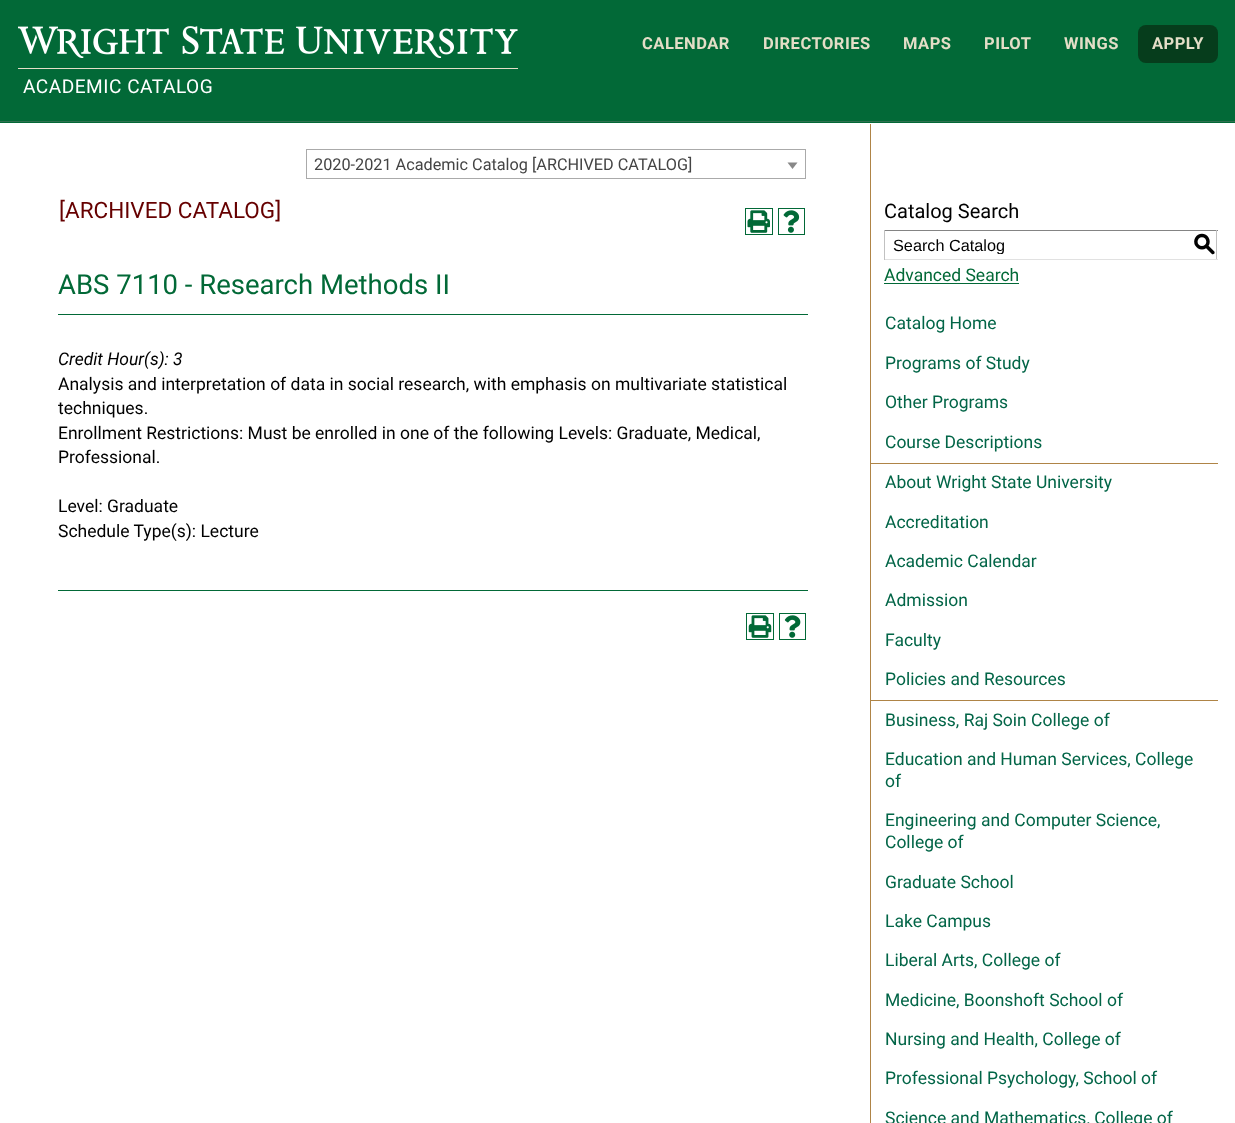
<svg xmlns="http://www.w3.org/2000/svg" xmlns:xlink="http://www.w3.org/1999/xlink" width="1235" height="1123" viewBox="0 0 1235 1123">
<style>
.cls-1{font:bold 16.5px Roboto;letter-spacing:0.5px;fill:#e4dec7}
.cls-2{font:19.1px Roboto;letter-spacing:0.5px;fill:#ffffff}
.cls-3{font:16.25px Roboto;fill:#444444}
.cls-4{font:22.5px Roboto;fill:#660000}
.cls-5{font:27.5px Roboto;fill:#026937}
.cls-6{font:italic 17.5px Roboto;fill:#000000}
.cls-7{font:17.5px Roboto;fill:#000000}
.cls-8{font:20px Roboto;fill:#000000}
.cls-9{font:16.25px Liberation Sans;fill:#000000}
.cls-10{font:500 22.5px 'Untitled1';fill:#000000}
.cls-11{font:17.5px Roboto;fill:#026937}
.cls-12{font:17.5px Roboto;fill:#026547}
</style>
<defs>
<clipPath id="clip1"><rect x="893" y="235" width="293" height="19"/></clipPath>
</defs>
<rect width="100%" height="100%" fill="#ffffff"/>
<rect fill="#026937" x="0" y="0" width="1235" height="123"/>
<rect fill="#307050" x="0" y="121" width="1235" height="1"/>
<rect fill="#063d1c" x="1138" y="25" width="80" height="38" rx="8"/>
<image xlink:href="image0.png" x="18" y="26" width="500" height="32"/>
<rect fill="#e4dec7" x="18" y="68" width="500" height="1"/>
<rect fill="none" stroke="#aaaaaa" x="306.5" y="149.5" width="499" height="29"/>
<path fill="#888888" d="M787.5 162.5H797.5L792.5 169Z"/>
<rect fill="none" stroke="#026937" x="745.5" y="208.5" width="27" height="26"/>
<image xlink:href="image1.png" x="747" y="210" width="23" height="23"/>
<rect fill="none" stroke="#026937" x="778.5" y="208.5" width="26" height="26"/>
<image xlink:href="image2.png" x="783" y="210" width="17" height="23"/>
<rect fill="#026937" x="58" y="314" width="750" height="1"/>
<rect fill="#026937" x="58" y="590" width="750" height="1"/>
<rect fill="none" stroke="#026937" x="746.5" y="613.5" width="27" height="26"/>
<image xlink:href="image3.png" x="748" y="615" width="24" height="23"/>
<rect fill="none" stroke="#026937" x="779.5" y="613.5" width="26" height="26"/>
<image xlink:href="image4.png" x="784" y="615" width="17" height="23"/>
<rect fill="#af8446" x="870" y="124" width="1" height="999"/>
<rect fill="#848484" x="884" y="230" width="334" height="1"/>
<rect fill="#c1c1c1" x="1216" y="230" width="1" height="30"/>
<rect fill="#e1e1e1" x="884" y="259" width="334" height="1"/>
<rect fill="#c1c1c1" x="884" y="230" width="1" height="30"/>
<rect fill="#026937" x="884" y="283" width="135" height="1"/>
<rect fill="#af8446" x="871" y="463" width="347" height="1"/>
<rect fill="#af8446" x="871" y="700" width="347" height="1"/>
<text class="cls-1" x="642" y="49">CALENDAR</text>
<text class="cls-1" x="763" y="49">DIRECTORIES</text>
<text class="cls-1" x="903" y="49">MAPS</text>
<text class="cls-1" x="984" y="49">PILOT</text>
<text class="cls-1" x="1064" y="49">WINGS</text>
<text class="cls-1" x="1152" y="49">APPLY</text>
<text class="cls-2" x="23" y="93">ACADEMIC CATALOG</text>
<text class="cls-3" x="314" y="170">2020-2021 Academic Catalog [ARCHIVED CATALOG]</text>
<text class="cls-4" x="59" y="218">[ARCHIVED CATALOG]</text>
<text class="cls-5" x="58" y="294">ABS 7110 - Research Methods II</text>
<text class="cls-6" x="58" y="365">Credit Hour(s): 3</text>
<text class="cls-7"><tspan x="58" y="390">Analysis and interpretation of data in social research, with emphasis on multivariate statistical</tspan><tspan x="58" y="414">techniques.</tspan><tspan x="58" y="439">Enrollment Restrictions: Must be enrolled in one of the following Levels: Graduate, Medical,</tspan><tspan x="58" y="463">Professional.</tspan></text>
<text class="cls-7"><tspan x="58" y="512">Level: Graduate</tspan><tspan x="58" y="537">Schedule Type(s): Lecture</tspan></text>
<text class="cls-8" x="884" y="218">Catalog Search</text>
<g clip-path="url(#clip1)">
<text class="cls-9" x="893" y="251">Search Catalog</text>
</g>
<text class="cls-10" x="1193" y="251">S</text>
<text class="cls-11" x="884" y="281">Advanced Search</text>
<text class="cls-12" x="885" y="329">Catalog Home</text>
<text class="cls-12" x="885" y="369">Programs of Study</text>
<text class="cls-12" x="885" y="408">Other Programs</text>
<text class="cls-12" x="885" y="448">Course Descriptions</text>
<text class="cls-12" x="885" y="488">About Wright State University</text>
<text class="cls-12" x="885" y="528">Accreditation</text>
<text class="cls-12" x="885" y="567">Academic Calendar</text>
<text class="cls-12" x="885" y="606">Admission</text>
<text class="cls-12" x="885" y="646">Faculty</text>
<text class="cls-12" x="885" y="685">Policies and Resources</text>
<text class="cls-12" x="885" y="726">Business, Raj Soin College of</text>
<text class="cls-12"><tspan x="885" y="765">Education and Human Services, College</tspan><tspan x="885" y="787">of</tspan></text>
<text class="cls-12"><tspan x="885" y="826">Engineering and Computer Science,</tspan><tspan x="885" y="848">College of</tspan></text>
<text class="cls-12" x="885" y="888">Graduate School</text>
<text class="cls-12" x="885" y="927">Lake Campus</text>
<text class="cls-12" x="885" y="966">Liberal Arts, College of</text>
<text class="cls-12" x="885" y="1006">Medicine, Boonshoft School of</text>
<text class="cls-12" x="885" y="1045">Nursing and Health, College of</text>
<text class="cls-12" x="885" y="1084">Professional Psychology, School of</text>
<text class="cls-12" x="885" y="1124">Science and Mathematics, College of</text>
</svg>
